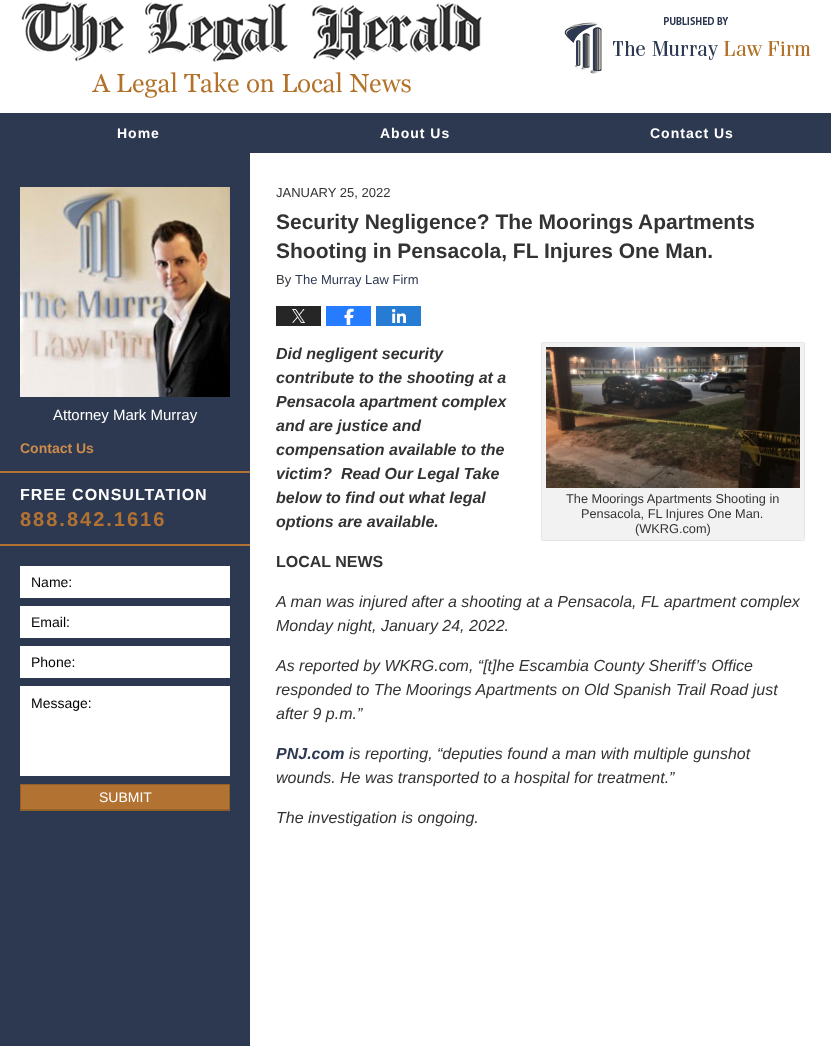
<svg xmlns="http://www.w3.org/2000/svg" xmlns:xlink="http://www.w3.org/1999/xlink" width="831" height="1046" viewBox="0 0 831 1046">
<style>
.cls-1{font:bold 14px Liberation Sans;letter-spacing:1px;fill:#ffffff}
.cls-2{font:13px Liberation Sans;fill:#333333}
.cls-3{font:bold 21px Liberation Sans;fill:#333333}
.cls-4{font:13px Liberation Sans;fill:#2d3951}
.cls-5{font:italic bold 16px Liberation Sans;fill:#333333}
.cls-6{font:12.75px Liberation Sans;fill:#333333}
.cls-7{font:bold 16px Liberation Sans;fill:#333333}
.cls-8{font:italic 16px Liberation Sans;fill:#333333}
.cls-9{font:italic bold 16px Liberation Sans;fill:#2d3951}
.cls-10{font:15px Liberation Sans;fill:#ffffff}
.cls-11{font:bold 14px Liberation Sans;fill:#cc8c4b}
.cls-12{font:bold 16px Liberation Sans;letter-spacing:1px;fill:#ffffff}
.cls-13{font:bold 20px Liberation Sans;letter-spacing:2px;fill:#b27232}
.cls-14{font:14px Liberation Sans;fill:#000000}
.cls-15{font:14px Liberation Sans;fill:#ffffff}
</style>
<rect width="100%" height="100%" fill="#ffffff"/>
<image xlink:href="image0.png" x="21" y="1" width="461" height="97"/>
<image xlink:href="image1.png" x="564" y="17" width="247" height="57"/>
<rect fill="#2d3951" x="0" y="113" width="831" height="40"/>
<rect fill="#2d3951" x="0" y="153" width="250" height="893"/>
<image xlink:href="image2.png" x="276" y="306" width="45" height="20"/>
<image xlink:href="image3.png" x="326" y="306" width="45" height="20"/>
<image xlink:href="image4.png" x="376" y="306" width="45" height="20"/>
<rect fill="#f2f2f2" stroke="#e6e6e6" x="541.5" y="342.5" width="263" height="198" rx="1.5"/>
<image xlink:href="image5.png" x="546" y="347" width="254" height="141"/>
<image xlink:href="image6.png" x="20" y="187" width="210" height="210"/>
<rect fill="#b27232" x="0" y="471" width="250" height="2"/>
<rect fill="#b27232" x="0" y="544" width="250" height="2"/>
<rect fill="#ffffff" x="20" y="566" width="210" height="32"/>
<rect fill="#ffffff" x="20" y="606" width="210" height="32"/>
<rect fill="#ffffff" x="20" y="646" width="210" height="32"/>
<rect fill="#ffffff" x="20" y="686" width="210" height="90"/>
<rect fill="#b27232" x="21" y="785" width="208" height="23"/>
<rect fill="#b67533" x="21" y="808" width="208" height="1"/>
<rect fill="#925e29" x="20" y="784" width="210" height="1"/>
<rect fill="#925e29" x="229" y="784" width="1" height="27"/>
<rect fill="#925e29" x="20" y="809" width="210" height="2"/>
<rect fill="#925e29" x="20" y="784" width="1" height="27"/>
<text class="cls-1" x="117" y="138">Home</text>
<text class="cls-1" x="380" y="138">About Us</text>
<text class="cls-1" x="650" y="138">Contact Us</text>
<text class="cls-2" x="276" y="197">JANUARY 25, 2022</text>
<text class="cls-3"><tspan x="276" y="229">Security Negligence? The Moorings Apartments</tspan><tspan x="276" y="258">Shooting in Pensacola, FL Injures One Man.</tspan></text>
<text class="cls-2" x="276" y="284">By</text>
<text class="cls-4" x="295" y="284">The Murray Law Firm</text>
<text class="cls-5" xml:space="preserve"><tspan x="276" y="359">Did negligent security</tspan><tspan x="276" y="383">contribute to the shooting at a</tspan><tspan x="276" y="407">Pensacola apartment complex</tspan><tspan x="276" y="431">and are justice and</tspan><tspan x="276" y="455">compensation available to the</tspan><tspan x="276" y="479">victim?  Read Our Legal Take</tspan><tspan x="276" y="503">below to find out what legal</tspan><tspan x="276" y="527">options are available.</tspan></text>
<text class="cls-6" x="566" y="503">The Moorings Apartments Shooting in</text>
<text class="cls-6" x="581" y="518">Pensacola, FL Injures One Man.</text>
<text class="cls-6" x="635" y="533">(WKRG.com)</text>
<text class="cls-7" x="276" y="567">LOCAL NEWS</text>
<text class="cls-8"><tspan x="276" y="607">A man was injured after a shooting at a Pensacola, FL apartment complex</tspan><tspan x="276" y="631">Monday night, January 24, 2022.</tspan></text>
<text class="cls-8"><tspan x="276" y="671">As reported by WKRG.com, “[t]he Escambia County Sheriff’s Office</tspan><tspan x="276" y="695">responded to The Moorings Apartments on Old Spanish Trail Road just</tspan><tspan x="276" y="719">after 9 p.m.”</tspan></text>
<text class="cls-9" x="276" y="759">PNJ.com</text>
<text class="cls-8" x="349" y="759">is reporting, “deputies found a man with multiple gunshot</text>
<text class="cls-8" x="276" y="783">wounds. He was transported to a hospital for treatment.”</text>
<text class="cls-8" x="276" y="823">The investigation is ongoing.</text>
<text class="cls-10" x="53" y="420">Attorney Mark Murray</text>
<text class="cls-11" x="20" y="453">Contact Us</text>
<text class="cls-12" x="20" y="500">FREE CONSULTATION</text>
<text class="cls-13" x="20" y="526">888.842.1616</text>
<text class="cls-14" x="31" y="587">Name:</text>
<text class="cls-14" x="31" y="627">Email:</text>
<text class="cls-14" x="31" y="667">Phone:</text>
<text class="cls-14" x="31" y="708">Message:</text>
<text class="cls-15" x="99" y="802">SUBMIT</text>
</svg>
